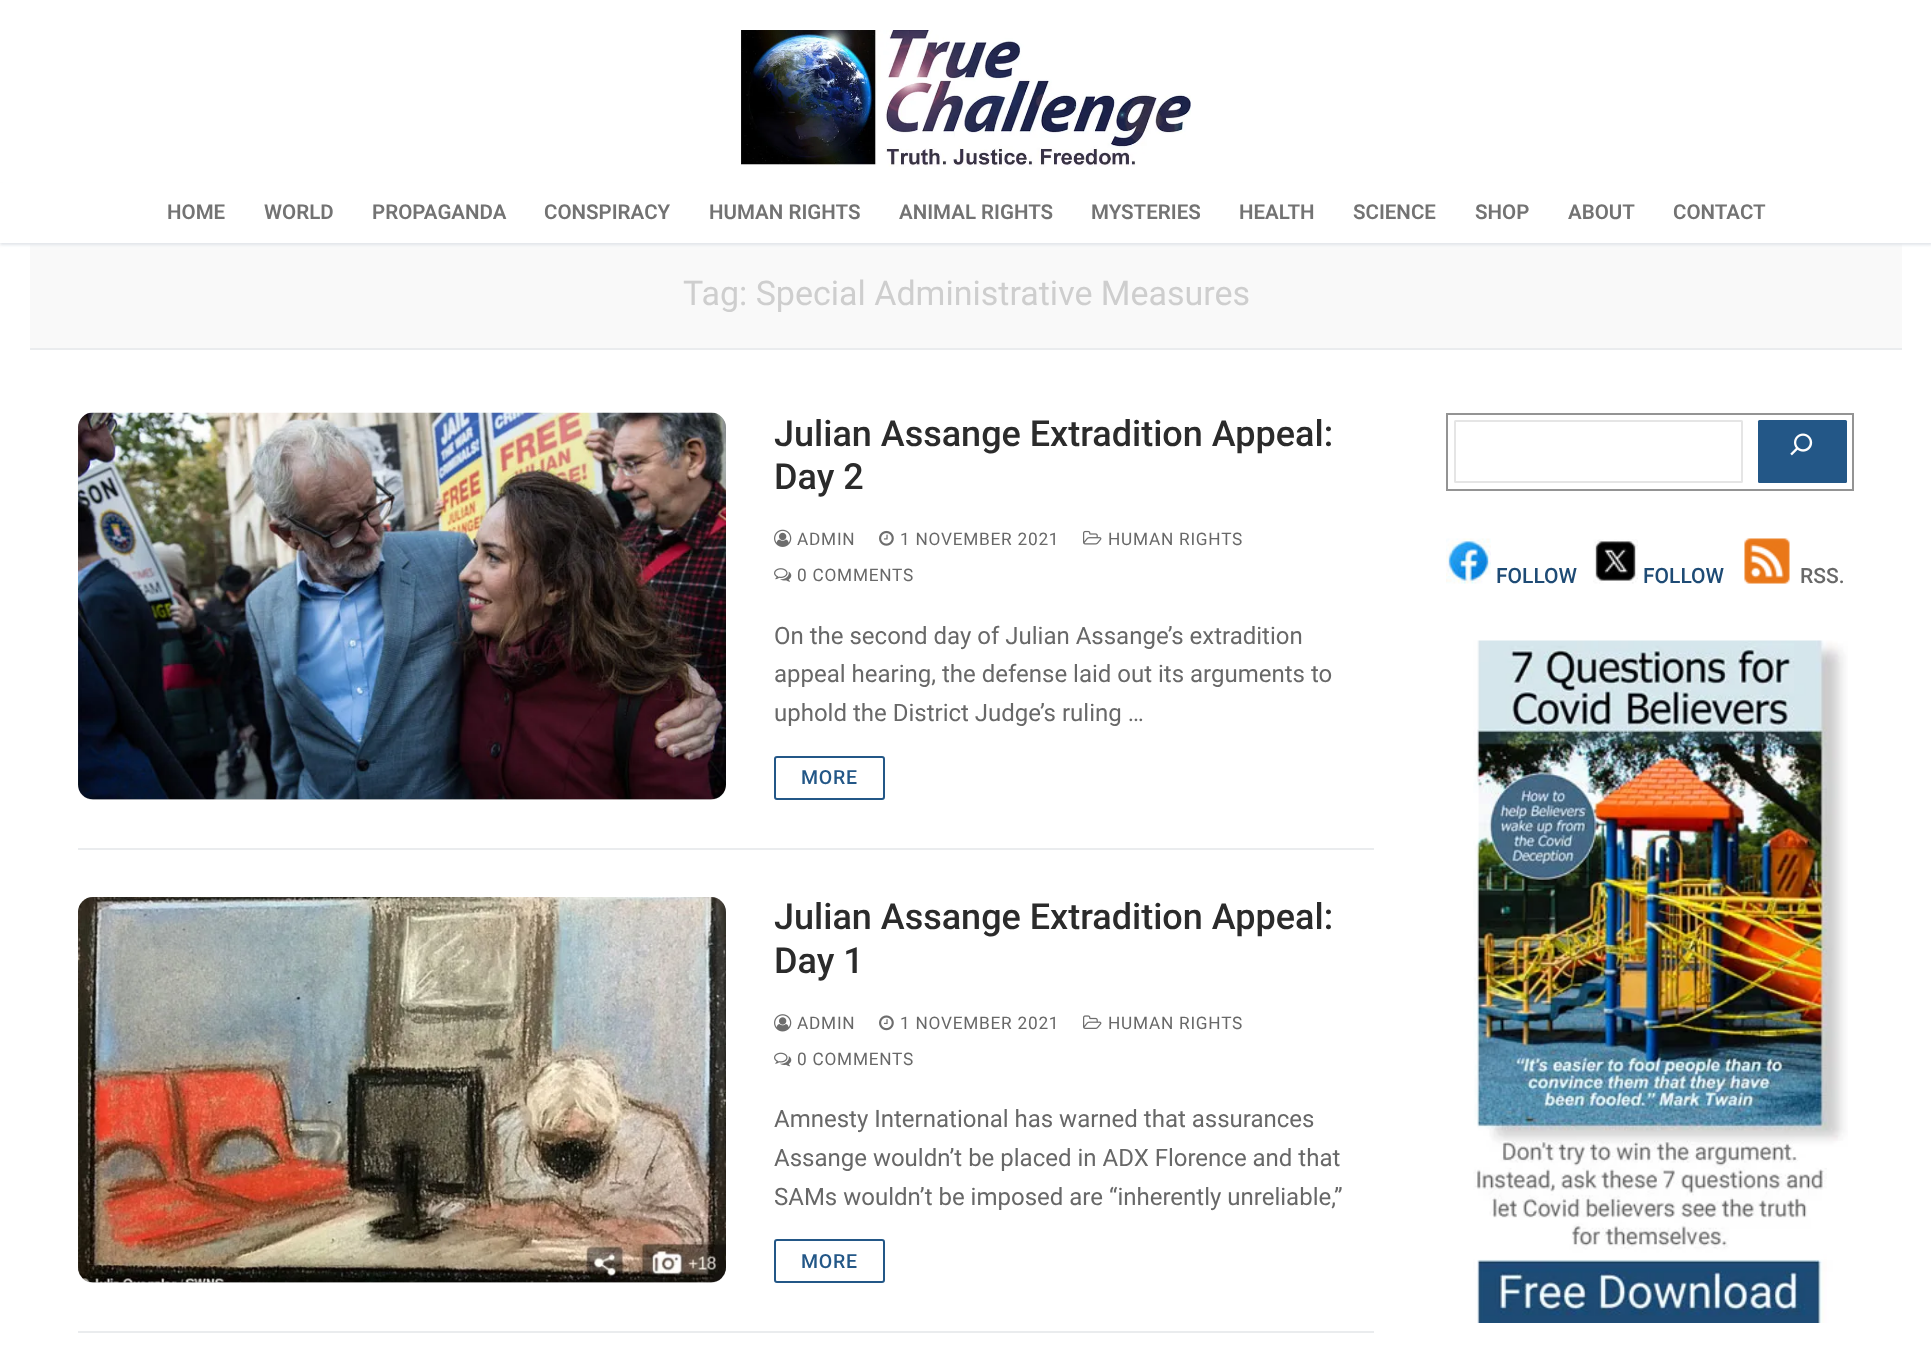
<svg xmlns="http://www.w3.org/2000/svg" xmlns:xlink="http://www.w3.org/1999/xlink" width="1931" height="1347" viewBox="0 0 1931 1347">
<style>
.cls-1{font:600 20.5px Roboto;fill:#737373}
.cls-2{font:34px Roboto;fill:#cecece}
.cls-3{font:500 36px Roboto;fill:#2b2b2b}
.cls-4{font:17.25px Roboto;letter-spacing:0.75px;fill:#686868}
.cls-5{font:24px Roboto;fill:#686868}
.cls-6{font:500 19.5px Roboto;letter-spacing:0.75px;fill:#235787}
.cls-7{font:500 21px Roboto;fill:#1e4b75}
.cls-8{font:500 21px Roboto;fill:#686868}
</style>
<defs>
<clipPath id="clip1"><path d="M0 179H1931V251H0ZM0 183H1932V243H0Z" clip-rule="evenodd"/></clipPath>
</defs>
<rect width="100%" height="100%" fill="#ffffff"/>
<image xlink:href="image0.png" x="741" y="30" width="450" height="137"/>
<rect fill="#f9f9f9" x="30" y="243" width="1872" height="105"/>
<g clip-path="url(#clip1)">
<rect fill="#e1e5ea" filter="blur(1.5px)" x="0" y="185" width="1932" height="60"/>
</g>
<rect fill="#eaecee" x="30" y="348" width="1872" height="2"/>
<rect fill="#eaecee" x="78" y="848" width="1296" height="2"/>
<rect fill="#d5d5d5" x="78" y="413" width="648" height="387" rx="15"/>
<image xlink:href="image1.png" x="78" y="412" width="648" height="388"/>
<image xlink:href="image2.png" x="774" y="529" width="18" height="18"/>
<image xlink:href="image3.png" x="879" y="530" width="15" height="16"/>
<image xlink:href="image4.png" x="1083" y="530" width="19" height="15"/>
<image xlink:href="image5.png" x="774" y="568" width="18" height="14"/>
<rect fill="none" stroke="#235787" stroke-width="2" x="775" y="757" width="109" height="42" rx="2"/>
<rect fill="#eaecee" x="78" y="1331" width="1296" height="2"/>
<rect fill="#d5d5d5" x="78" y="897" width="648" height="386" rx="15"/>
<image xlink:href="image6.png" x="78" y="897" width="648" height="386"/>
<image xlink:href="image7.png" x="774" y="1014" width="18" height="18"/>
<image xlink:href="image8.png" x="879" y="1015" width="15" height="16"/>
<image xlink:href="image9.png" x="1083" y="1015" width="19" height="14"/>
<image xlink:href="image10.png" x="774" y="1052" width="18" height="15"/>
<rect fill="none" stroke="#235787" stroke-width="2" x="775" y="1240" width="109" height="42" rx="2"/>
<rect fill="none" stroke="#949494" stroke-width="2" x="1447" y="414" width="406" height="76"/>
<rect fill="none" stroke="#e5e5e5" stroke-width="2" x="1455" y="421" width="287" height="61" rx="0.5"/>
<rect fill="#235787" x="1758" y="420" width="89" height="63" rx="1.5"/>
<image xlink:href="image11.png" x="1790" y="433" width="23" height="23"/>
<image xlink:href="image12.png" x="1446" y="538" width="45" height="46"/>
<image xlink:href="image13.png" x="1593" y="539" width="45" height="45"/>
<image xlink:href="image14.png" x="1744" y="538" width="46" height="46"/>
<image xlink:href="image15.png" x="1473" y="640" width="375" height="683"/>
<text class="cls-1" x="167" y="219">HOME</text>
<text class="cls-1" x="264" y="219">WORLD</text>
<text class="cls-1" x="372" y="219">PROPAGANDA</text>
<text class="cls-1" x="544" y="219">CONSPIRACY</text>
<text class="cls-1" x="709" y="219">HUMAN RIGHTS</text>
<text class="cls-1" x="899" y="219">ANIMAL RIGHTS</text>
<text class="cls-1" x="1091" y="219">MYSTERIES</text>
<text class="cls-1" x="1239" y="219">HEALTH</text>
<text class="cls-1" x="1353" y="219">SCIENCE</text>
<text class="cls-1" x="1475" y="219">SHOP</text>
<text class="cls-1" x="1568" y="219">ABOUT</text>
<text class="cls-1" x="1673" y="219">CONTACT</text>
<text class="cls-2" x="683" y="305">Tag: Special Administrative Measures</text>
<text class="cls-3"><tspan x="774" y="446">Julian Assange Extradition Appeal:</tspan><tspan x="774" y="489">Day 2</tspan></text>
<text class="cls-4" x="797" y="545">ADMIN</text>
<text class="cls-4" x="900" y="545">1 NOVEMBER 2021</text>
<text class="cls-4" x="1108" y="545">HUMAN RIGHTS</text>
<text class="cls-4" x="797" y="581">0 COMMENTS</text>
<text class="cls-5"><tspan x="774" y="644">On the second day of Julian Assange’s extradition</tspan><tspan x="774" y="682">appeal hearing, the defense laid out its arguments to</tspan><tspan x="774" y="721">uphold the District Judge’s ruling …</tspan></text>
<text class="cls-6" x="801" y="784">MORE</text>
<text class="cls-3"><tspan x="774" y="929">Julian Assange Extradition Appeal:</tspan><tspan x="774" y="973">Day 1</tspan></text>
<text class="cls-4" x="797" y="1029">ADMIN</text>
<text class="cls-4" x="900" y="1029">1 NOVEMBER 2021</text>
<text class="cls-4" x="1108" y="1029">HUMAN RIGHTS</text>
<text class="cls-4" x="797" y="1065">0 COMMENTS</text>
<text class="cls-5"><tspan x="774" y="1127">Amnesty International has warned that assurances</tspan><tspan x="774" y="1166">Assange wouldn’t be placed in ADX Florence and that</tspan><tspan x="774" y="1205">SAMs wouldn’t be imposed are “inherently unreliable,”</tspan></text>
<text class="cls-6" x="801" y="1268">MORE</text>
<text class="cls-7" x="1496" y="583">FOLLOW</text>
<text class="cls-7" x="1643" y="583">FOLLOW</text>
<text class="cls-8" x="1800" y="583">RSS.</text>
</svg>
